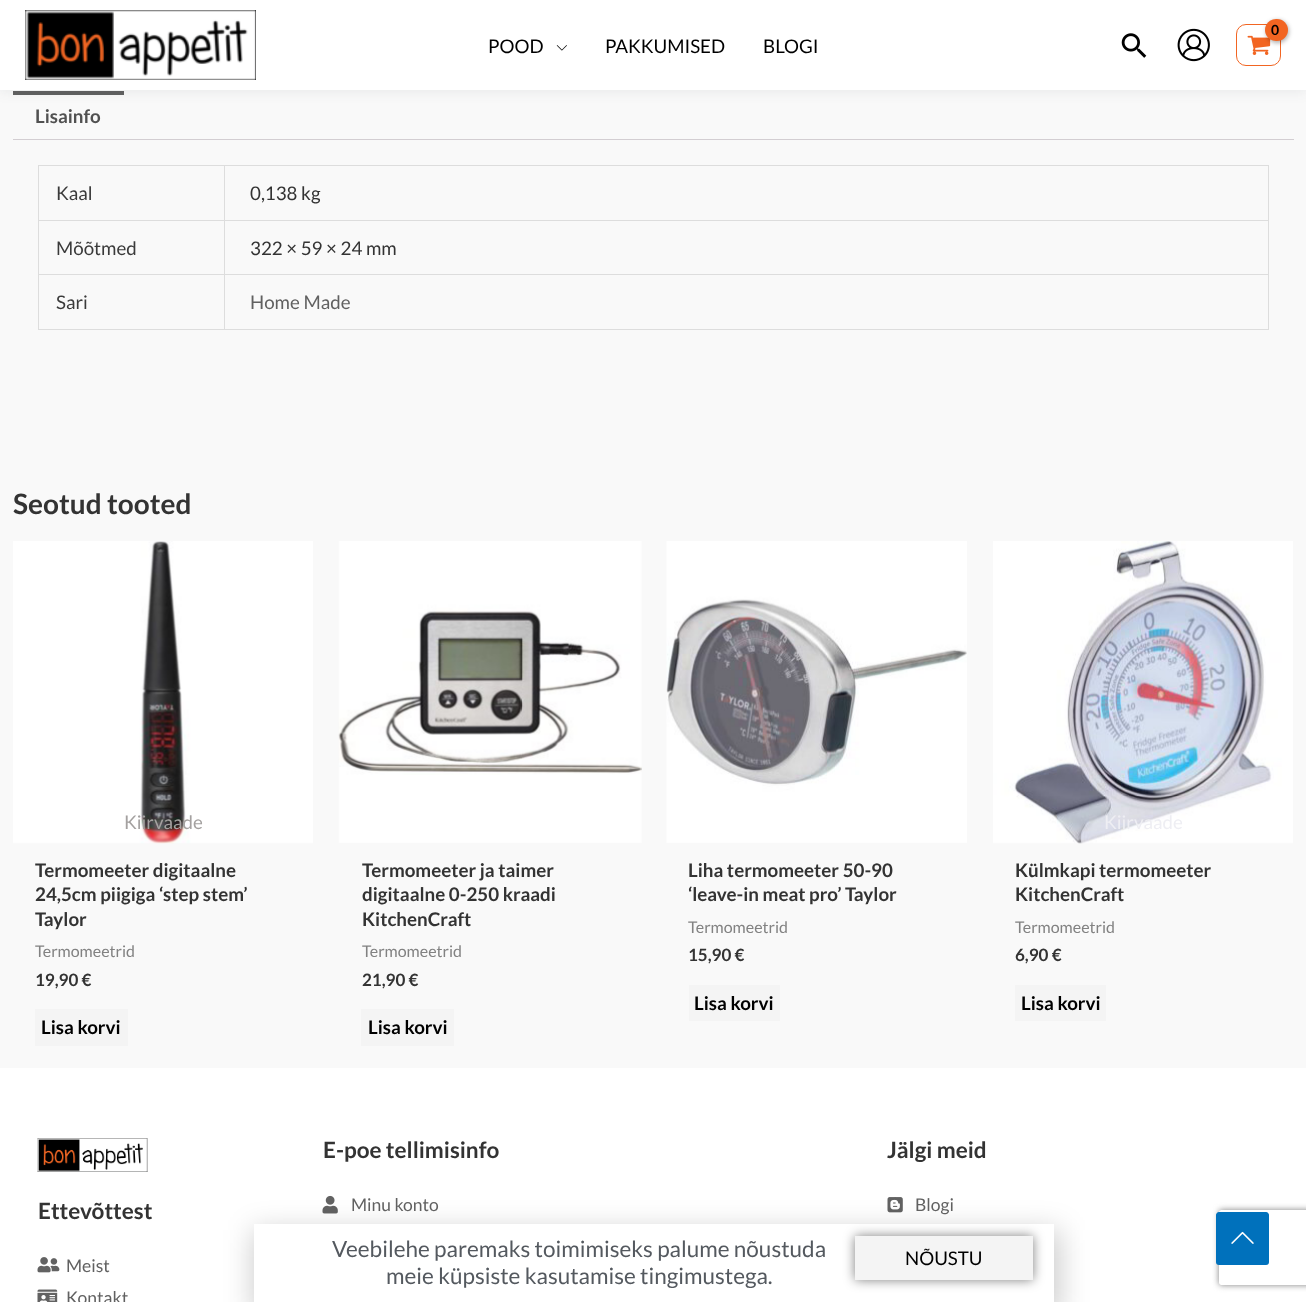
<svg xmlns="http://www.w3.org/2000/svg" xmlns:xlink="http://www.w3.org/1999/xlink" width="1306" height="1302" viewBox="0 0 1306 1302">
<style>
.cls-1{font:bold 14px Lato;letter-spacing:-1px;fill:#000000}
.cls-2{font:18.75px Lato;fill:#000000}
.cls-3{font:bold 18.75px Lato;fill:#515151}
.cls-4{font:18.75px Lato;fill:#3a3a3a}
.cls-5{font:18.75px Lato;fill:#333333}
.cls-6{font:18.75px Lato;fill:#616161}
.cls-7{font:bold 28px Lato;fill:#333333}
.cls-8{font:18.75px Lato;fill:#a4a1a0}
.cls-9{font:bold 18.75px Lato;fill:#333333}
.cls-10{font:16px Lato;fill:#828282}
.cls-11{font:bold 17px Lato;fill:#333333}
.cls-12{font:bold 18.75px Lato;fill:#000000}
.cls-13{font:18.75px Lato;fill:#eeeef3}
.cls-14{font:bold 22.5px Lato;fill:#333333}
.cls-15{font:17.5px Lato;fill:#616161}
.cls-16{font:22.5px Lato;fill:#54595f}
</style>
<defs>
<clipPath id="clip1"><path d="M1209 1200H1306V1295H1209ZM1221.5 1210H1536.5C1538 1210 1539 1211 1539 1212.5V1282.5C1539 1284 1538 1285 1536.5 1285H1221.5C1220 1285 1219 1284 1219 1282.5V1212.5C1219 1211 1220 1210 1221.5 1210Z" clip-rule="evenodd"/></clipPath>
</defs>
<rect width="100%" height="100%" fill="#f9f9f9"/>
<rect fill="#616161" x="13" y="91" width="111" height="4"/>
<rect fill="#243242" fill-opacity="0.07" filter="blur(6px)" x="0" y="3" width="1306" height="90"/>
<rect fill="#ffffff" x="0" y="0" width="1306" height="90"/>
<image xlink:href="image0.png" x="25" y="10" width="231" height="70"/>
<image xlink:href="image1.png" x="1121" y="33" width="26" height="25"/>
<image xlink:href="image2.png" x="1177" y="28" width="33" height="34"/>
<rect fill="none" stroke="#f26522" x="1236.5" y="24.5" width="44" height="41" rx="9.5"/>
<image xlink:href="image3.png" x="1247" y="35" width="24" height="20"/>
<rect fill="#000000" fill-opacity="0.3" filter="blur(2px)" x="1266" y="20" width="23" height="23" rx="11.5"/>
<rect fill="#f26522" x="1265" y="19" width="23" height="22" rx="11"/>
<image xlink:href="image4.png" x="556" y="45" width="11" height="6"/>
<rect fill="#d3ced2" x="13" y="139" width="1281" height="1"/>
<rect fill="#dddddd" x="38" y="165" width="1231" height="1"/>
<rect fill="#dddddd" x="224" y="166" width="1" height="164"/>
<rect fill="#dddddd" x="38" y="220" width="187" height="1"/>
<rect fill="#dddddd" x="38" y="166" width="1" height="55"/>
<rect fill="#dddddd" x="1268" y="166" width="1" height="164"/>
<rect fill="#dddddd" x="225" y="220" width="1044" height="1"/>
<rect fill="#dddddd" x="38" y="274" width="1231" height="1"/>
<rect fill="#dddddd" x="38" y="221" width="1" height="54"/>
<rect fill="#dddddd" x="38" y="329" width="1231" height="1"/>
<rect fill="#dddddd" x="38" y="275" width="1" height="55"/>
<image xlink:href="image5.png" x="13" y="541" width="300" height="303"/>
<rect fill="#f4f4f4" x="35" y="1009" width="93" height="37"/>
<image xlink:href="image6.png" x="338" y="541" width="304" height="302"/>
<rect fill="#f4f4f4" x="361" y="1009" width="93" height="37"/>
<image xlink:href="image7.png" x="666" y="541" width="301" height="302"/>
<rect fill="#f4f4f4" x="689" y="985" width="91" height="36"/>
<image xlink:href="image8.png" x="993" y="541" width="300" height="303"/>
<rect fill="#f4f4f4" x="1015" y="985" width="91" height="36"/>
<rect fill="#ffffff" x="0" y="1068" width="1306" height="234"/>
<image xlink:href="image9.png" x="322" y="1195" width="16" height="19"/>
<image xlink:href="image10.png" x="887" y="1197" width="16" height="16"/>
<image xlink:href="image11.png" x="37" y="1138" width="111" height="34"/>
<image xlink:href="image12.png" x="37" y="1257" width="23" height="16"/>
<image xlink:href="image13.png" x="37" y="1289" width="21" height="13"/>
<g clip-path="url(#clip1)">
<rect fill="#808080" filter="blur(3px)" x="1219" y="1210" width="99" height="75" rx="2.5"/>
</g>
<rect fill="#000000" fill-opacity="0.2" filter="blur(14.5px)" x="253" y="1230" width="807" height="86"/>
<rect fill="#ffffff" x="254" y="1224" width="800" height="78"/>
<rect fill="#000000" fill-opacity="0.5" filter="blur(6px)" x="855" y="1236" width="178" height="44"/>
<rect fill="#f4f4f4" x="855" y="1236" width="178" height="44"/>
<path fill="#0071bc" d="M1266 1265H1219C1217 1265 1216 1264 1216 1262V1215C1216 1214 1217 1212 1219 1212H1266C1268 1212 1269 1214 1269 1215V1262C1269 1264 1268 1265 1266 1265Z"/>
<image xlink:href="image14.png" x="1231" y="1231" width="23" height="13"/>
<text class="cls-1" x="1271" y="35">0</text>
<text class="cls-2" x="488" y="53">POOD</text>
<text class="cls-2" x="605" y="53">PAKKUMISED</text>
<text class="cls-2" x="763" y="53">BLOGI</text>
<text class="cls-3" x="35" y="123">Lisainfo</text>
<text class="cls-4" x="56" y="200">Kaal</text>
<text class="cls-5" x="250" y="200">0,138 kg</text>
<text class="cls-4" x="56" y="255">Mõõtmed</text>
<text class="cls-5" x="250" y="255">322 × 59 × 24 mm</text>
<text class="cls-4" x="56" y="309">Sari</text>
<text class="cls-6" x="250" y="309">Home Made</text>
<text class="cls-7" x="13" y="514">Seotud tooted</text>
<text class="cls-8" x="124" y="829">Kiirvaade</text>
<text class="cls-9"><tspan x="35" y="877">Termomeeter digitaalne</tspan><tspan x="35" y="901">24,5cm piigiga ‘step stem’</tspan><tspan x="35" y="926">Taylor</tspan></text>
<text class="cls-10" x="35" y="957">Termomeetrid</text>
<text class="cls-11" x="35" y="986">19,90 €</text>
<text class="cls-12" x="41" y="1034">Lisa korvi</text>
<text class="cls-9"><tspan x="362" y="877">Termomeeter ja taimer</tspan><tspan x="362" y="901">digitaalne 0-250 kraadi</tspan><tspan x="362" y="926">KitchenCraft</tspan></text>
<text class="cls-10" x="362" y="957">Termomeetrid</text>
<text class="cls-11" x="362" y="986">21,90 €</text>
<text class="cls-12" x="368" y="1034">Lisa korvi</text>
<text class="cls-9"><tspan x="688" y="877">Liha termomeeter 50-90</tspan><tspan x="688" y="901">‘leave-in meat pro’ Taylor</tspan></text>
<text class="cls-10" x="688" y="933">Termomeetrid</text>
<text class="cls-11" x="688" y="961">15,90 €</text>
<text class="cls-12" x="694" y="1010">Lisa korvi</text>
<text class="cls-13" x="1104" y="829">Kiirvaade</text>
<text class="cls-9"><tspan x="1015" y="877">Külmkapi termomeeter</tspan><tspan x="1015" y="901">KitchenCraft</tspan></text>
<text class="cls-10" x="1015" y="933">Termomeetrid</text>
<text class="cls-11" x="1015" y="961">6,90 €</text>
<text class="cls-12" x="1021" y="1010">Lisa korvi</text>
<text class="cls-14" x="323" y="1158">E-poe tellimisinfo</text>
<text class="cls-15" x="351" y="1211">Minu konto</text>
<text class="cls-14" x="887" y="1158">Jälgi meid</text>
<text class="cls-15" x="915" y="1211">Blogi</text>
<text class="cls-14" x="38" y="1219">Ettevõttest</text>
<text class="cls-15"><tspan x="66" y="1272">Meist</tspan><tspan x="66" y="1304">Kontakt</tspan></text>
<text class="cls-16" x="332" y="1257">Veebilehe paremaks toimimiseks palume nõustuda</text>
<text class="cls-16" x="386" y="1284">meie küpsiste kasutamise tingimustega.</text>
<text class="cls-2" x="905" y="1265">NÕUSTU</text>
</svg>
